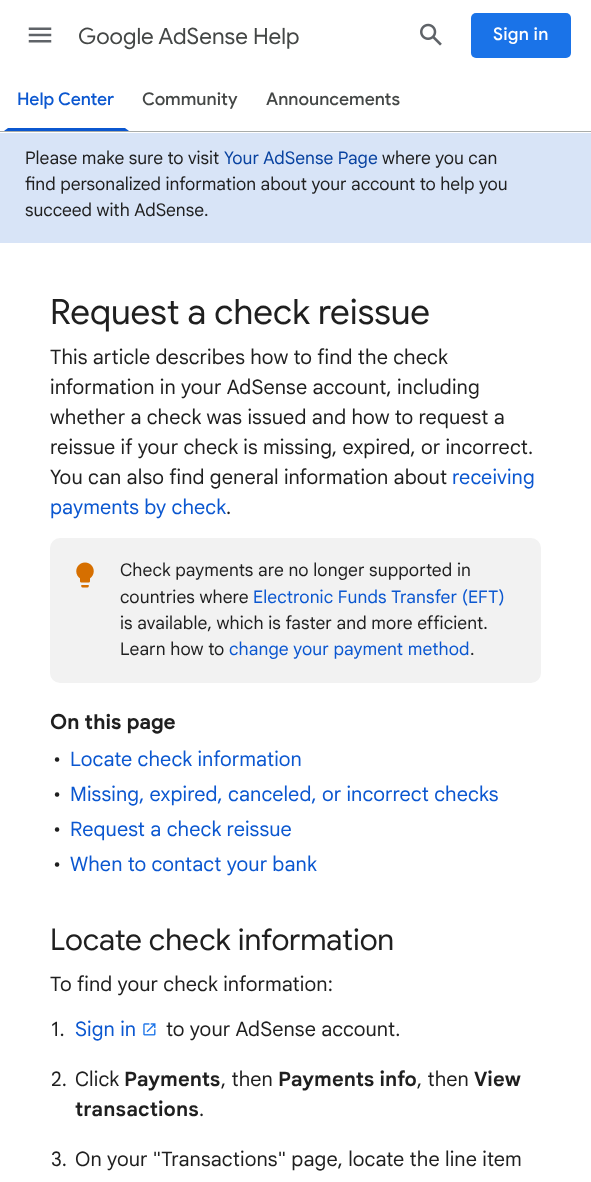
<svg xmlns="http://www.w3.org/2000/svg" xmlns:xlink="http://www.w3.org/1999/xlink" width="591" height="1182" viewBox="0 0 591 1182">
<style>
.cls-1{font:22.5px Google Sans;fill:#444746}
.cls-2{font:500 17.5px Google Sans;letter-spacing:0.25px;fill:#ffffff}
.cls-3{font:500 17.5px Google Sans;fill:#0b57d0}
.cls-4{font:500 17.5px Google Sans;fill:#444746}
.cls-5{font:17.5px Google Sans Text;fill:#1f1f1f}
.cls-6{font:17.5px Google Sans Text;fill:#0842a0}
.cls-7{font:35px Google Sans;fill:#1f1f1f}
.cls-8{font:20px Google Sans Text;letter-spacing:0.1px;fill:#1f1f1f}
.cls-9{font:20px Google Sans Text;letter-spacing:0.1px;fill:#0b57d0}
.cls-10{font:17.5px Google Sans Text;letter-spacing:0.1px;fill:#1f1f1f}
.cls-11{font:17.5px Google Sans Text;letter-spacing:0.1px;fill:#0b57d0}
.cls-12{font:bold 20px Google Sans;letter-spacing:0.6px;fill:#1f1f1f}
.cls-13{font:30px Google Sans;fill:#1f1f1f}
.cls-14{font:bold 20px Google Sans Text;letter-spacing:0.1px;fill:#1f1f1f}
</style>
<rect width="100%" height="100%" fill="#ffffff"/>
<image xlink:href="image0.png" x="28" y="27" width="24" height="16"/>
<image xlink:href="image1.png" x="420" y="23" width="22" height="23"/>
<rect fill="#1a73e8" x="471" y="13" width="100" height="45" rx="5"/>
<rect fill="#a9acaa" x="0" y="131" width="591" height="1"/>
<path fill="#0b57d0" d="M129 131H4L8 128H125Z"/>
<rect fill="#d8e4f7" x="0" y="133" width="591" height="110"/>
<rect fill="#f2f2f2" x="50" y="538" width="491" height="145" rx="10"/>
<image xlink:href="image2.png" x="76" y="562" width="18" height="26"/>
<image xlink:href="image3.png" x="143" y="1023" width="13" height="13"/>
<text class="cls-1" x="78" y="44">Google AdSense Help</text>
<text class="cls-2" x="493" y="40">Sign in</text>
<text class="cls-3" x="17" y="105">Help Center</text>
<text class="cls-4" x="142" y="105">Community</text>
<text class="cls-4" x="266" y="105">Announcements</text>
<text class="cls-5" x="25" y="164">Please make sure to visit</text>
<text class="cls-6" x="224" y="164">Your AdSense Page</text>
<text class="cls-5" x="382" y="164">where you can</text>
<text class="cls-5"><tspan x="25" y="190">find personalized information about your account to help you</tspan><tspan x="25" y="216">succeed with AdSense.</tspan></text>
<text class="cls-7" x="50" y="324">Request a check reissue</text>
<text class="cls-8"><tspan x="50" y="364">This article describes how to find the check</tspan><tspan x="50" y="394">information in your AdSense account, including</tspan><tspan x="50" y="424">whether a check was issued and how to request a</tspan><tspan x="50" y="454">reissue if your check is missing, expired, or incorrect.</tspan><tspan x="50" y="484">You can also find general information about</tspan></text>
<text class="cls-9" x="452" y="484">receiving</text>
<text class="cls-9" x="50" y="514">payments by check</text>
<text class="cls-8" x="226" y="514">.</text>
<text class="cls-10"><tspan x="120" y="576">Check payments are no longer supported in</tspan><tspan x="120" y="603">countries where</tspan></text>
<text class="cls-11" x="253" y="603">Electronic Funds Transfer (EFT)</text>
<text class="cls-10"><tspan x="120" y="629">is available, which is faster and more efficient.</tspan><tspan x="120" y="655">Learn how to</tspan></text>
<text class="cls-11" x="229" y="655">change your payment method</text>
<text class="cls-10" x="470" y="655">.</text>
<text class="cls-12" x="50" y="729">On this page</text>
<text class="cls-8" x="53" y="766">•</text>
<text class="cls-9" x="70" y="766">Locate check information</text>
<text class="cls-8" x="53" y="801">•</text>
<text class="cls-9" x="70" y="801">Missing, expired, canceled, or incorrect checks</text>
<text class="cls-8" x="53" y="836">•</text>
<text class="cls-9" x="70" y="836">Request a check reissue</text>
<text class="cls-8" x="53" y="871">•</text>
<text class="cls-9" x="70" y="871">When to contact your bank</text>
<text class="cls-13" x="50" y="950">Locate check information</text>
<text class="cls-8" x="50" y="991">To find your check information:</text>
<text class="cls-8" x="51" y="1036">1.</text>
<text class="cls-9" x="75" y="1036">Sign in</text>
<text class="cls-8" x="166" y="1036">to your AdSense account.</text>
<text class="cls-8" x="51" y="1086">2.</text>
<text class="cls-8" x="75" y="1086">Click</text>
<text class="cls-14" x="124" y="1086">Payments</text>
<text class="cls-8" x="221" y="1086">, then</text>
<text class="cls-14" x="278" y="1086">Payments info</text>
<text class="cls-8" x="417" y="1086">, then</text>
<text class="cls-14" x="474" y="1086">View</text>
<text class="cls-14" x="75" y="1116">transactions</text>
<text class="cls-8" x="199" y="1116">.</text>
<text class="cls-8" x="51" y="1166">3.</text>
<text class="cls-8" x="75" y="1166">On your "Transactions" page, locate the line item</text>
</svg>
